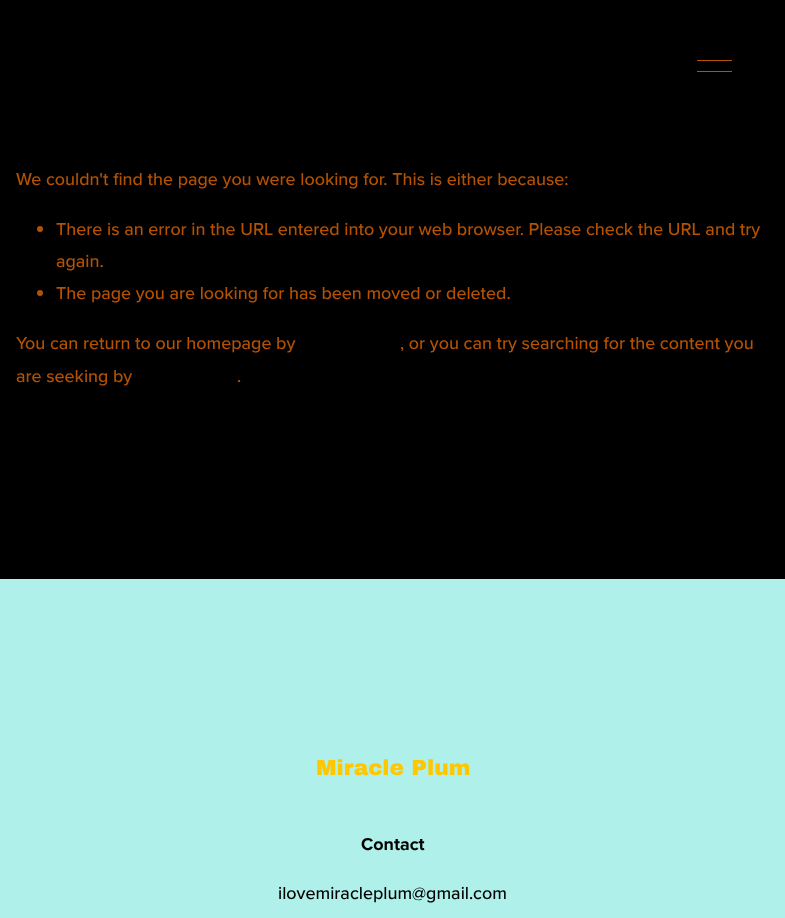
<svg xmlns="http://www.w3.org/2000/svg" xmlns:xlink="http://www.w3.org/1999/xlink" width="785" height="918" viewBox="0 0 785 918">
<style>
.cls-1{font:500 17.9px Proxima Nova;fill:#b55202}
.cls-2{font:900 21.75px Archivo Black;fill:#ffc700}
.cls-3{font:bold 17.9px Proxima Nova;fill:#000000}
.cls-4{font:500 17.9px Proxima Nova;fill:#000000}
</style>
<rect width="100%" height="100%" fill="#000000"/>
<rect fill="#b55202" x="697" y="60" width="35" height="1"/>
<rect fill="#b55202" x="697" y="71" width="35" height="1"/>
<circle fill="#b55202" cx="40" cy="229" r="3"/>
<circle fill="#b55202" cx="40" cy="293" r="3"/>
<rect fill="#aff1ea" x="0" y="579" width="785" height="339"/>
<text class="cls-1" x="16" y="185">We couldn't find the page you were looking for. This is either because:</text>
<text class="cls-1"><tspan x="56" y="235">There is an error in the URL entered into your web browser. Please check the URL and try</tspan><tspan x="56" y="267">again.</tspan><tspan x="56" y="299">The page you are looking for has been moved or deleted.</tspan></text>
<text class="cls-1" x="16" y="349">You can return to our homepage by</text>
<text class="cls-1" x="400" y="349">, or you can try searching for the content you</text>
<text class="cls-1" x="16" y="382">are seeking by</text>
<text class="cls-1" x="237" y="382">.</text>
<text class="cls-2" x="316" y="775">Miracle Plum</text>
<text class="cls-3" x="361" y="850">Contact</text>
<text class="cls-4" x="278" y="899">ilovemiracleplum@gmail.com</text>
</svg>
